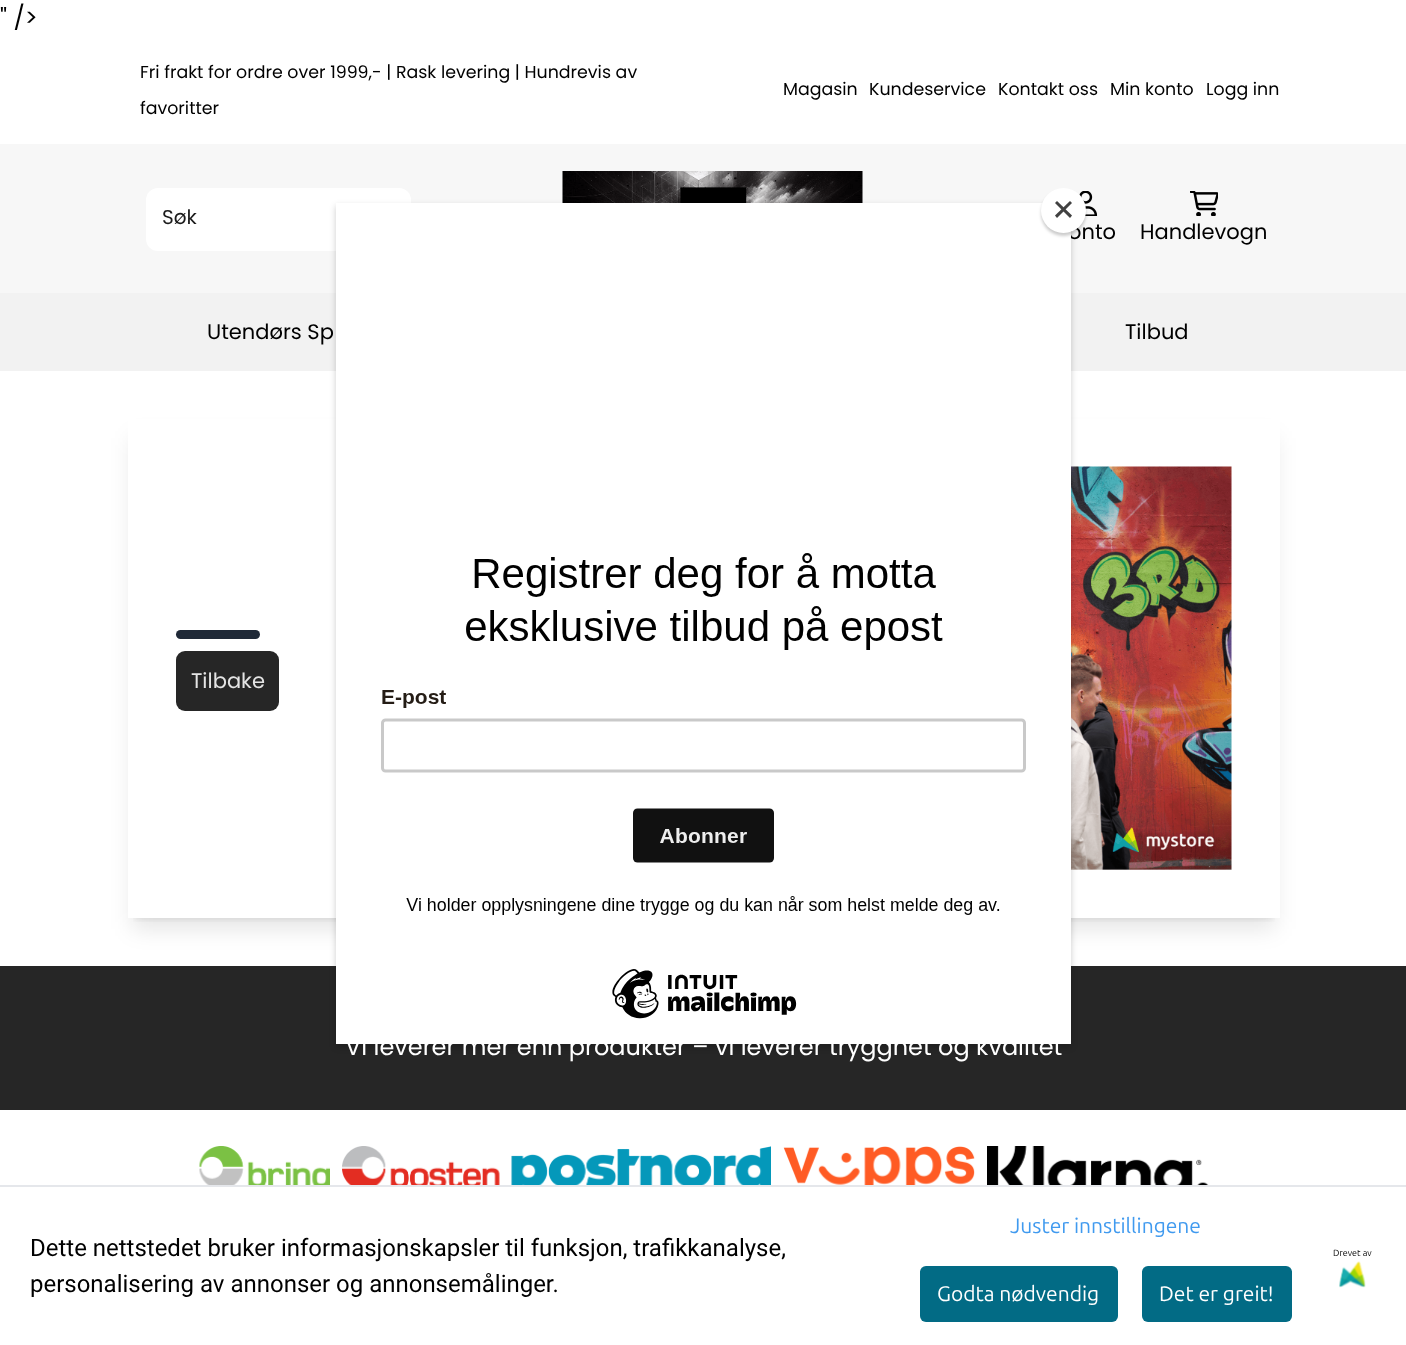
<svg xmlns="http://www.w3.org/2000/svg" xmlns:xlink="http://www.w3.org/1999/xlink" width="1406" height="1345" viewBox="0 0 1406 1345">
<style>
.cls-1{font:24px Poppins;fill:#000000}
.cls-2{font:17.4px Poppins;fill:#000000}
.cls-3{font:20px Poppins;fill:#1b1b1b}
.cls-4{font:21px Poppins;fill:#000000}
.cls-5{font:21px Poppins;fill:#e4e4e4}
.cls-6{font:24px Poppins;fill:#ffffff}
.cls-7{font:24px Roboto;fill:#000000}
.cls-8{font:21px Ubuntu;fill:#409aef}
.cls-9{font:21px Ubuntu;fill:#ffffff}
.cls-10{font:9px Ubuntu;fill:#000000}
</style>
<defs>
<clipPath id="clip1"><rect x="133" y="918" width="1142" height="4"/></clipPath>
<clipPath id="clip2"><path d="M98 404H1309V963H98ZM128 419H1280V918H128Z" clip-rule="evenodd"/></clipPath>
</defs>
<rect width="100%" height="100%" fill="#ffffff"/>
<rect fill="#f7f7f7" x="0" y="144" width="1406" height="149"/>
<image xlink:href="image0.png" x="562" y="171" width="301" height="32"/>
<rect fill="#ffffff" x="146" y="188" width="265" height="63" rx="12"/>
<image xlink:href="image1.png" x="1079" y="191" width="19" height="25"/>
<image xlink:href="image2.png" x="1190" y="191" width="28" height="25"/>
<rect fill="#f2f2f2" x="0" y="293" width="1406" height="78"/>
<g clip-path="url(#clip1)">
<rect fill="#000000" fill-opacity="0.1" filter="blur(4.5px)" x="134" y="431" width="1140" height="487"/>
</g>
<g clip-path="url(#clip2)">
<rect fill="#000000" fill-opacity="0.1" filter="blur(11px)" x="132" y="438" width="1143" height="491"/>
</g>
<rect fill="#1f2937" x="176" y="630" width="84" height="9" rx="4.5"/>
<rect fill="#262626" x="176" y="651" width="103" height="60" rx="9"/>
<image xlink:href="image3.png" x="1071" y="466" width="161" height="404"/>
<rect fill="#262626" x="0" y="966" width="1406" height="144"/>
<image xlink:href="image4.png" x="199" y="1146" width="131" height="39"/>
<image xlink:href="image5.png" x="342" y="1146" width="158" height="39"/>
<image xlink:href="image6.png" x="511" y="1146" width="260" height="39"/>
<image xlink:href="image7.png" x="783" y="1146" width="192" height="39"/>
<image xlink:href="image8.png" x="987" y="1146" width="222" height="39"/>
<rect fill="#e5e7eb" x="0" y="1185" width="1406" height="2"/>
<rect fill="#026b85" x="920" y="1266" width="198" height="56" rx="6"/>
<rect fill="#026b85" x="1142" y="1266" width="150" height="56" rx="6"/>
<image xlink:href="image9.png" x="1339" y="1261" width="27" height="27"/>
<rect fill="#000000" fill-opacity="0.2" filter="blur(3px)" x="336" y="206" width="735" height="841"/>
<text class="cls-1" x="0" y="26">" /&gt;</text>
<text class="cls-2" x="140" y="78">Fri frakt for ordre over 1999,- | Rask levering | Hundrevis av</text>
<text class="cls-2" x="140" y="114">favoritter</text>
<text class="cls-2" x="783" y="95">Magasin</text>
<text class="cls-2" x="869" y="95">Kundeservice</text>
<text class="cls-2" x="998" y="95">Kontakt oss</text>
<text class="cls-2" x="1110" y="95">Min konto</text>
<text class="cls-2" x="1206" y="95">Logg inn</text>
<text class="cls-3" x="162" y="224">Søk</text>
<text class="cls-4" x="1068" y="239">onto</text>
<text class="cls-4" x="1140" y="239">Handlevogn</text>
<text class="cls-4" x="207" y="339">Utendørs Sp</text>
<text class="cls-4" x="1125" y="339">Tilbud</text>
<text class="cls-5" x="191" y="688">Tilbake</text>
<text class="cls-6" x="345" y="1055">Vi leverer mer enn produkter – vi leverer trygghet og kvalitet</text>
<text class="cls-7"><tspan x="30" y="1256">Dette nettstedet bruker informasjonskapsler til funksjon, trafikkanalyse,</tspan><tspan x="30" y="1292">personalisering av annonser og annonsemålinger.</tspan></text>
<text class="cls-8" x="1010" y="1233">Juster innstillingene</text>
<text class="cls-9" x="937" y="1301">Godta nødvendig</text>
<text class="cls-9" x="1159" y="1301">Det er greit!</text>
<text class="cls-10" x="1333" y="1256">Drevet av</text>
<image xlink:href="image10.png" x="336" y="203" width="735" height="841"/>
<rect fill="#000000" fill-opacity="0.2" filter="blur(1.5px)" x="1041" y="191" width="45" height="45" rx="22.5"/>
<circle fill="#ffffff" cx="1063.5" cy="210.5" r="22.5"/>
<path fill="#414141" d="M1070 201L1072 203L1057 218L1055 215.5Z"/>
<path fill="#414141" d="M1055 203L1057 201L1072 215.5L1070 218Z"/>
</svg>
